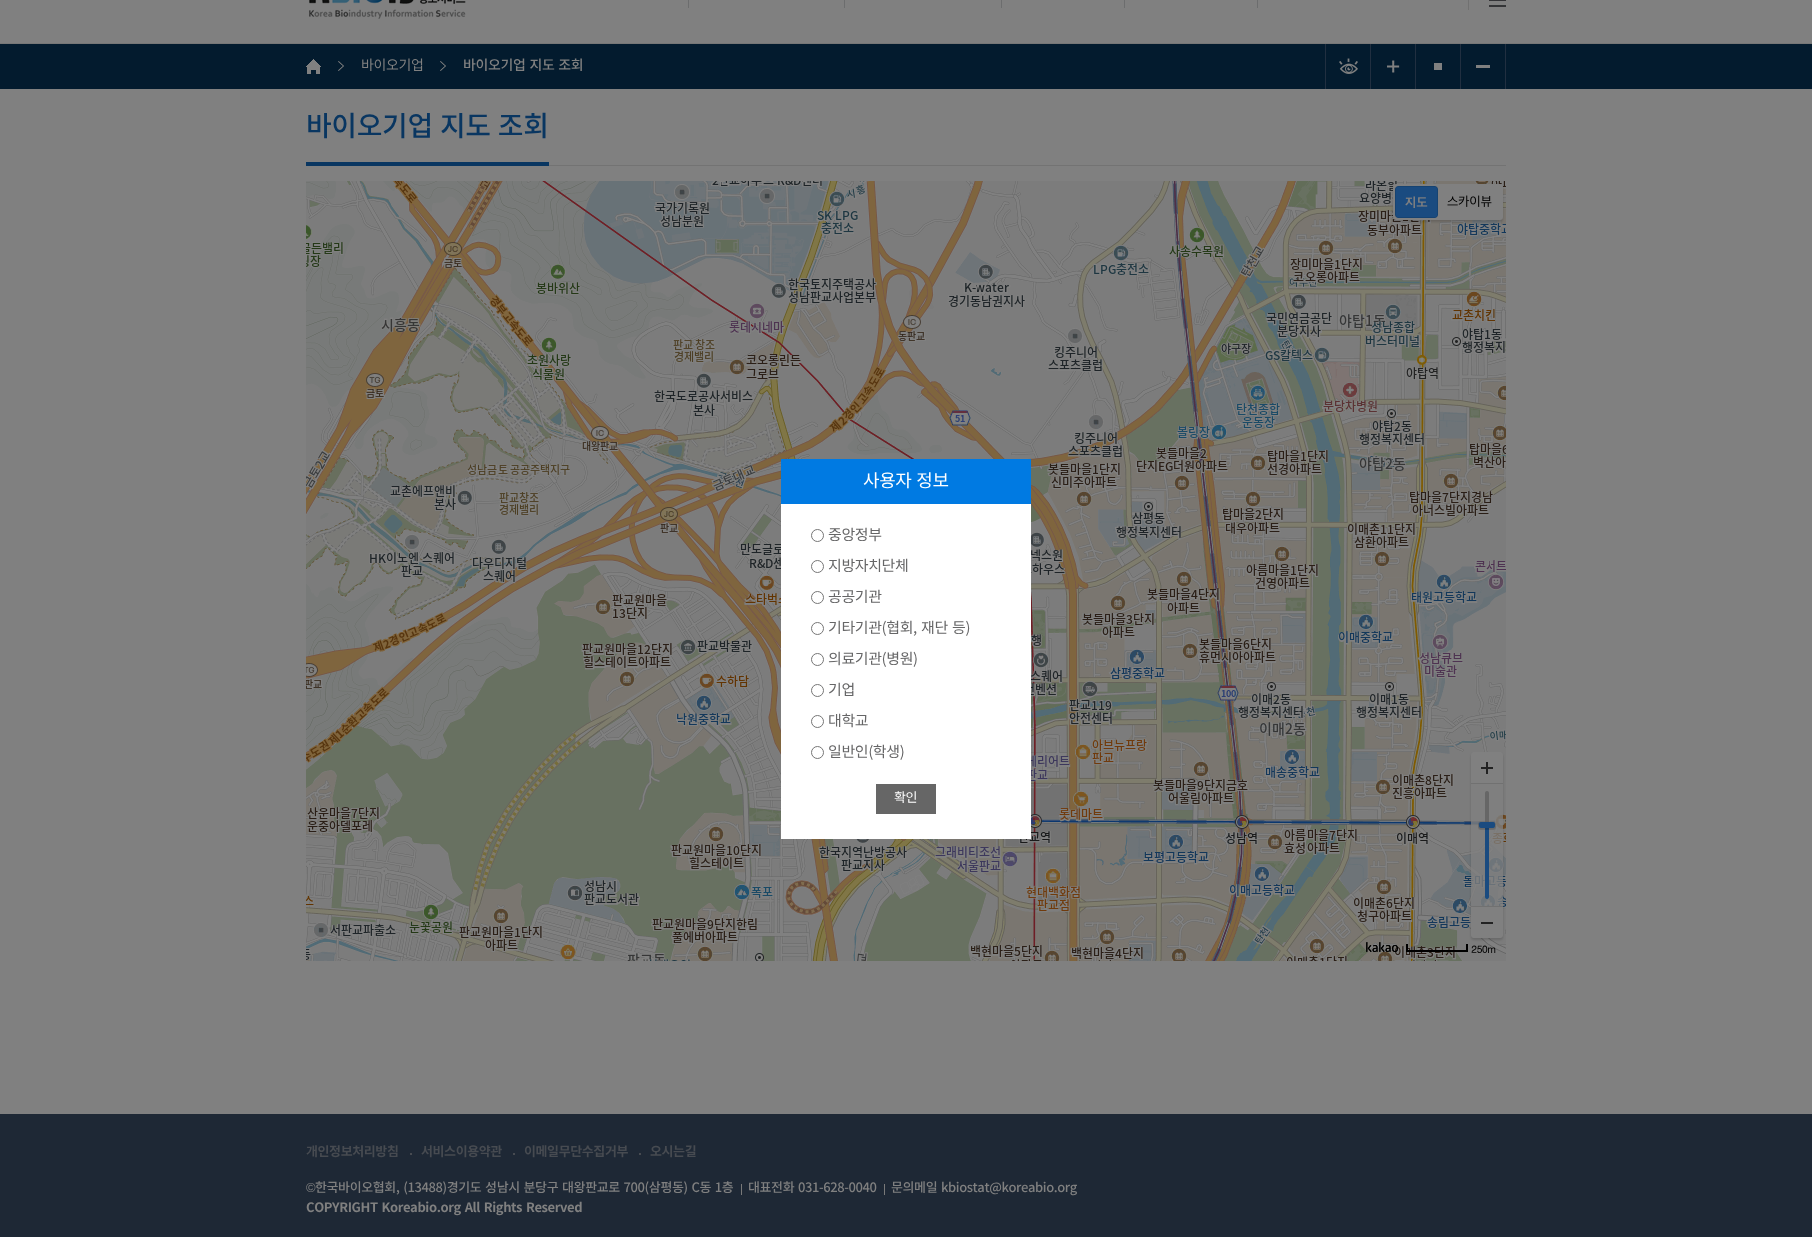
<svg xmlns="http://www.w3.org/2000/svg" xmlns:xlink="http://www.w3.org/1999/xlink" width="1812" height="1237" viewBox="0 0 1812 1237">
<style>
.cls-1{font:14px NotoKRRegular;letter-spacing:-0.4px;fill:#808080}
.cls-2{font:500 14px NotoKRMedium;letter-spacing:-0.4px;fill:#808080}
.cls-3{font:500 28px NotoKRMedium;letter-spacing:-0.4px;fill:#093661}
.cls-4{font:bold 10px Dotum;letter-spacing:-0.4px;fill:#000000}
.cls-5{font:18px NotoKRRegular;letter-spacing:-0.4px;fill:#ffffff}
.cls-6{font:15px NotoKRRegular;letter-spacing:-0.4px;fill:#666667}
.cls-7{font:13px NotoKRRegular;letter-spacing:-0.4px;fill:#ffffff}
.cls-8{font:bold 13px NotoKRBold;letter-spacing:-0.4px;fill:#474b51}
.cls-9{font:13px Liberation Sans;letter-spacing:-0.4px;fill:#808080}
.cls-10{font:500 13px NotoKRMedium;letter-spacing:-0.4px;fill:#808080}
.cls-11{font:bold 13px NotoKRBold;letter-spacing:-0.4px;fill:#808080}
</style>
<defs>
<clipPath id="clip1"><path d="M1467 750H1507V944H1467ZM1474 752H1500C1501.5 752 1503 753.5 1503 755V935C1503 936.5 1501.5 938 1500 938H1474C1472.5 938 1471 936.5 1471 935V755C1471 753.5 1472.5 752 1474 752Z" clip-rule="evenodd"/></clipPath>
</defs>
<rect width="100%" height="100%" fill="#808080"/>
<rect fill="#777777" x="0" y="43" width="1812" height="1"/>
<image xlink:href="image0.png" x="309" y="0" width="157" height="19"/>
<rect fill="#6c6d6e" x="688" y="0" width="1" height="8"/>
<rect fill="#6c6d6e" x="844" y="0" width="1" height="8"/>
<rect fill="#6c6d6e" x="1001" y="0" width="1" height="8"/>
<rect fill="#6c6d6e" x="1124" y="0" width="1" height="8"/>
<rect fill="#6c6d6e" x="1257" y="0" width="1" height="8"/>
<rect fill="#717171" x="1468" y="0" width="1" height="10"/>
<image xlink:href="image1.png" x="1489" y="0" width="17" height="7"/>
<rect fill="#031b2e" x="0" y="44" width="1812" height="45"/>
<image xlink:href="image2.png" x="306" y="59" width="15" height="15"/>
<image xlink:href="image3.png" x="338" y="61" width="6" height="10"/>
<image xlink:href="image3.png" x="440" y="61" width="6" height="10"/>
<rect fill="#212f40" x="1325" y="44" width="1" height="45"/>
<image xlink:href="image4.png" x="1339" y="58" width="19" height="16"/>
<rect fill="#212f40" x="1370" y="44" width="1" height="45"/>
<image xlink:href="image5.png" x="1387" y="60" width="13" height="13"/>
<rect fill="#212f40" x="1415" y="44" width="1" height="45"/>
<rect fill="#808080" x="1434" y="63" width="8" height="7"/>
<rect fill="#212f40" x="1460" y="44" width="1" height="45"/>
<rect fill="#808080" x="1476" y="65" width="14" height="3"/>
<rect fill="#212f40" x="1505" y="44" width="1" height="45"/>
<rect fill="#737373" x="549" y="165" width="957" height="1"/>
<rect fill="#093661" x="306" y="162" width="243" height="4"/>
<image xlink:href="image6.png" x="306" y="181" width="159" height="200"/>
<image xlink:href="image7.png" x="465" y="181" width="256" height="200"/>
<image xlink:href="image8.png" x="721" y="181" width="256" height="200"/>
<image xlink:href="image9.png" x="977" y="181" width="256" height="200"/>
<image xlink:href="image10.png" x="1233" y="181" width="256" height="200"/>
<image xlink:href="image11.png" x="1489" y="181" width="17" height="200"/>
<image xlink:href="image12.png" x="306" y="381" width="159" height="256"/>
<image xlink:href="image13.png" x="465" y="381" width="256" height="256"/>
<image xlink:href="image14.png" x="721" y="381" width="256" height="256"/>
<image xlink:href="image15.png" x="977" y="381" width="256" height="256"/>
<image xlink:href="image16.png" x="1233" y="381" width="256" height="256"/>
<image xlink:href="image17.png" x="1489" y="381" width="17" height="256"/>
<image xlink:href="image18.png" x="306" y="637" width="159" height="256"/>
<image xlink:href="image19.png" x="465" y="637" width="256" height="256"/>
<image xlink:href="image20.png" x="721" y="637" width="256" height="256"/>
<image xlink:href="image21.png" x="977" y="637" width="256" height="256"/>
<image xlink:href="image22.png" x="1233" y="637" width="256" height="256"/>
<image xlink:href="image23.png" x="1489" y="637" width="17" height="256"/>
<image xlink:href="image24.png" x="306" y="893" width="159" height="68"/>
<image xlink:href="image25.png" x="465" y="893" width="256" height="68"/>
<image xlink:href="image26.png" x="721" y="893" width="256" height="68"/>
<image xlink:href="image27.png" x="977" y="893" width="256" height="68"/>
<image xlink:href="image28.png" x="1233" y="893" width="256" height="68"/>
<image xlink:href="image29.png" x="1489" y="893" width="17" height="68"/>
<rect fill="#000000" fill-opacity="0.15" filter="blur(1px)" x="1393" y="186" width="110" height="36" rx="3"/>
<rect fill="#808080" x="1393" y="184" width="110" height="36" rx="3"/>
<image xlink:href="image30.png" x="1395" y="186" width="43" height="32"/>
<image xlink:href="image31.png" x="1447" y="195" width="45" height="12"/>
<g clip-path="url(#clip1)">
<rect fill="#000000" fill-opacity="0.15" filter="blur(1px)" x="1471" y="754" width="32" height="186" rx="3"/>
</g>
<path fill="#808080" d="M1474 752H1500C1501.5 752 1503 753.5 1503 755V784H1471V755C1471 753.5 1472.5 752 1474 752Z"/>
<image xlink:href="image32.png" x="1481" y="762" width="12" height="12"/>
<rect fill="#717171" x="1471" y="783" width="32" height="1"/>
<rect fill="#808080" fill-opacity="0.8" x="1471" y="784" width="32" height="122"/>
<rect fill="#1a4b80" x="1485" y="828" width="4" height="69"/>
<image xlink:href="image33.png" x="1485" y="791" width="4" height="2"/>
<image xlink:href="image34.png" x="1485" y="897" width="4" height="2"/>
<rect fill="#666666" x="1485" y="793" width="4" height="32"/>
<image xlink:href="image35.png" x="1478" y="821" width="18" height="9"/>
<path fill="#808080" d="M1471 906H1503V935C1503 936.5 1501.5 938 1500 938H1474C1472.5 938 1471 936.5 1471 935Z"/>
<rect fill="#222222" x="1481" y="922" width="12" height="2"/>
<rect fill="#717171" x="1471" y="906" width="32" height="1"/>
<image xlink:href="image36.png" x="1366" y="942" width="32" height="10"/>
<rect fill="#000000" x="1466" y="944" width="2" height="8"/>
<rect fill="#000000" x="1406" y="950" width="62" height="2"/>
<rect fill="#000000" x="1406" y="944" width="2" height="8"/>
<rect fill="#ffffff" x="781" y="504" width="250" height="335"/>
<rect fill="#007ae2" x="781" y="459" width="250" height="45"/>
<circle fill="none" stroke="#767676" cx="817.5" cy="535.5" r="6"/>
<circle fill="none" stroke="#767676" cx="817.5" cy="566.5" r="6"/>
<circle fill="none" stroke="#767676" cx="817.5" cy="597.5" r="6"/>
<circle fill="none" stroke="#767676" cx="817.5" cy="628.5" r="6"/>
<circle fill="none" stroke="#767676" cx="817.5" cy="659.5" r="6"/>
<circle fill="none" stroke="#767676" cx="817.5" cy="690.5" r="6"/>
<circle fill="none" stroke="#767676" cx="817.5" cy="721.5" r="6"/>
<circle fill="none" stroke="#767676" cx="817.5" cy="752.5" r="6"/>
<rect fill="#666666" x="876" y="784" width="60" height="30"/>
<rect fill="#1e2835" x="0" y="1114" width="1812" height="123"/>
<rect fill="#474b51" x="410" y="1153" width="2" height="2"/>
<rect fill="#474b51" x="513" y="1153" width="2" height="2"/>
<rect fill="#474b51" x="639" y="1153" width="2" height="2"/>
<rect fill="#797979" x="741" y="1184" width="1" height="11"/>
<rect fill="#797979" x="884" y="1184" width="1" height="11"/>
<text class="cls-1" x="361" y="70">바이오기업</text>
<text class="cls-2" x="463" y="70" word-spacing="1.25">바이오기업 지도 조회</text>
<text class="cls-3" x="306" y="136" word-spacing="1.25">바이오기업 지도 조회</text>
<text class="cls-4" x="1471" y="953">250m</text>
<text class="cls-5" x="863" y="487" word-spacing="1.25">사용자 정보</text>
<text class="cls-6" x="828" y="540">중앙정부</text>
<text class="cls-6" x="828" y="571">지방자치단체</text>
<text class="cls-6" x="828" y="602">공공기관</text>
<text class="cls-6" x="828" y="633" word-spacing="1.25">기타기관(협회, 재단 등)</text>
<text class="cls-6" x="828" y="664">의료기관(병원)</text>
<text class="cls-6" x="828" y="695">기업</text>
<text class="cls-6" x="828" y="726">대학교</text>
<text class="cls-6" x="828" y="757">일반인(학생)</text>
<text class="cls-7" x="894" y="802">확인</text>
<text class="cls-8" x="306" y="1156">개인정보처리방침</text>
<text class="cls-8" x="421" y="1156">서비스이용약관</text>
<text class="cls-8" x="524" y="1156">이메일무단수집거부</text>
<text class="cls-8" x="650" y="1156">오시는길</text>
<text class="cls-9" x="306" y="1192">©</text>
<text class="cls-10" x="315" y="1192" word-spacing="1.25">한국바이오협회, (13488)경기도 성남시 분당구 대왕판교로 700(삼평동) C동 1층</text>
<text class="cls-10" x="748" y="1192" word-spacing="1.25">대표전화 031-628-0040</text>
<text class="cls-10" x="891" y="1192" word-spacing="1.25">문의메일 kbiostat@koreabio.org</text>
<text class="cls-11" x="306" y="1212" word-spacing="1.25">COPYRIGHT Koreabio.org All Rights Reserved</text>
</svg>
